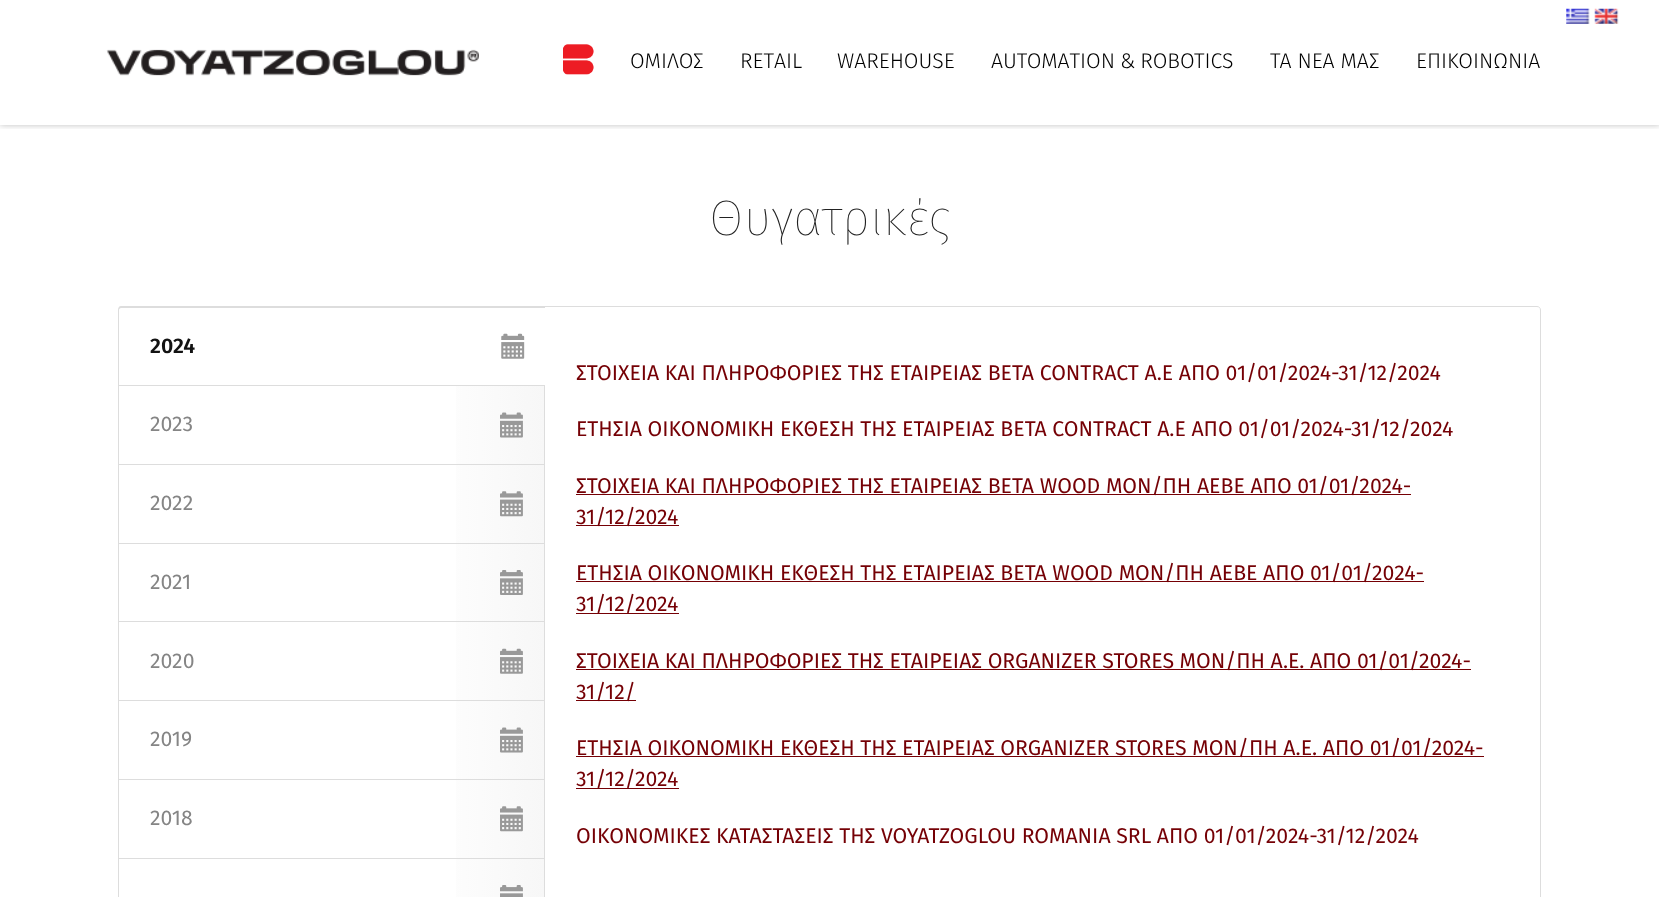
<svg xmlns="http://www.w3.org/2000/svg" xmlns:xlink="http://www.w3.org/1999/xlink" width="1659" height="897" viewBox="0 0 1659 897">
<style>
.cls-1{font:300 21.25px Fira Sans;fill:#000000}
.cls-2{font:100 50px Fira Sans;fill:#222222}
.cls-3{font:600 21.25px Fira Sans;fill:#131313}
.cls-4{font:21.25px Fira Sans;fill:#858585}
.cls-5{font:21.25px Fira Sans;fill:#750005}
</style>
<defs>
<clipPath id="clip1"><rect x="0" y="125" width="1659" height="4"/></clipPath>
<linearGradient id="g1" gradientUnits="userSpaceOnUse" x1="119" y1="425" x2="544" y2="425"><stop offset="0.7" stop-color="#ffffff"/><stop offset="1" stop-color="#f7f7f7"/></linearGradient>
<linearGradient id="g2" gradientUnits="userSpaceOnUse" x1="119" y1="504" x2="544" y2="504"><stop offset="0.7" stop-color="#ffffff"/><stop offset="1" stop-color="#f7f7f7"/></linearGradient>
<linearGradient id="g3" gradientUnits="userSpaceOnUse" x1="119" y1="583" x2="544" y2="583"><stop offset="0.7" stop-color="#ffffff"/><stop offset="1" stop-color="#f7f7f7"/></linearGradient>
<linearGradient id="g4" gradientUnits="userSpaceOnUse" x1="119" y1="661" x2="544" y2="661"><stop offset="0.7" stop-color="#ffffff"/><stop offset="1" stop-color="#f7f7f7"/></linearGradient>
<linearGradient id="g5" gradientUnits="userSpaceOnUse" x1="119" y1="740" x2="544" y2="740"><stop offset="0.7" stop-color="#ffffff"/><stop offset="1" stop-color="#f7f7f7"/></linearGradient>
<linearGradient id="g6" gradientUnits="userSpaceOnUse" x1="119" y1="819" x2="544" y2="819"><stop offset="0.7" stop-color="#ffffff"/><stop offset="1" stop-color="#f7f7f7"/></linearGradient>
<linearGradient id="g7" gradientUnits="userSpaceOnUse" x1="119" y1="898" x2="544" y2="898"><stop offset="0.7" stop-color="#ffffff"/><stop offset="1" stop-color="#f7f7f7"/></linearGradient>
</defs>
<rect width="100%" height="100%" fill="#ffffff"/>
<g clip-path="url(#clip1)">
<rect fill="#000000" fill-opacity="0.25" filter="blur(3px)" x="0" y="0" width="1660" height="125"/>
</g>
<image xlink:href="image0.png" x="1566" y="8" width="24" height="16"/>
<image xlink:href="image1.png" x="1594" y="8" width="25" height="16"/>
<image xlink:href="image2.png" x="106" y="49" width="373" height="27"/>
<image xlink:href="image3.png" x="563" y="44" width="31" height="31"/>
<path fill="none" stroke="#dddddd" d="M544.5 306.5H1537C1539 306.5 1540.5 308 1540.5 310V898C1540.5 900 1539 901.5 1537 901.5H548C546 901.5 544.5 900 544.5 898Z"/>
<path fill="#ffffff" d="M122 306H545V386H118V310C118 308 120 306 122 306Z"/>
<path fill="#dddddd" fill-rule="evenodd" d="M121 306H545V386H118V310C118 308 119 306 121 306ZM121 308H545V385H119V310C119 309 120 308 121 308Z"/>
<image xlink:href="image4.png" x="501" y="333" width="24" height="26"/>
<rect fill="url(#g1)" x="456" y="386" width="88" height="78"/>
<rect fill="#dddddd" x="118" y="464" width="427" height="1"/>
<rect fill="#dddddd" x="118" y="386" width="1" height="79"/>
<image xlink:href="image5.png" x="500" y="412" width="23" height="26"/>
<rect fill="url(#g2)" x="456" y="465" width="88" height="78"/>
<rect fill="#dddddd" x="118" y="543" width="427" height="1"/>
<rect fill="#dddddd" x="118" y="465" width="1" height="79"/>
<image xlink:href="image6.png" x="500" y="491" width="23" height="26"/>
<rect fill="url(#g3)" x="456" y="544" width="88" height="79"/>
<rect fill="#dddddd" x="118" y="621" width="427" height="1"/>
<rect fill="#dddddd" x="118" y="544" width="1" height="79"/>
<image xlink:href="image7.png" x="500" y="570" width="23" height="25"/>
<rect fill="url(#g4)" x="456" y="623" width="88" height="77"/>
<rect fill="#dddddd" x="118" y="700" width="427" height="1"/>
<rect fill="#dddddd" x="118" y="623" width="1" height="78"/>
<image xlink:href="image8.png" x="500" y="648" width="23" height="26"/>
<rect fill="url(#g5)" x="456" y="701" width="88" height="78"/>
<rect fill="#dddddd" x="118" y="779" width="427" height="1"/>
<rect fill="#dddddd" x="118" y="701" width="1" height="79"/>
<image xlink:href="image5.png" x="500" y="727" width="23" height="26"/>
<rect fill="url(#g6)" x="456" y="780" width="88" height="78"/>
<rect fill="#dddddd" x="118" y="858" width="427" height="1"/>
<rect fill="#dddddd" x="118" y="780" width="1" height="117"/>
<image xlink:href="image6.png" x="500" y="806" width="23" height="26"/>
<rect fill="url(#g7)" x="456" y="859" width="88" height="38"/>
<image xlink:href="image9.png" x="500" y="885" width="23" height="12"/>
<rect fill="#750005" x="576" y="494" width="835" height="1"/>
<rect fill="#750005" x="576" y="525" width="103" height="1"/>
<rect fill="#750005" x="576" y="581" width="848" height="1"/>
<rect fill="#750005" x="576" y="613" width="103" height="1"/>
<rect fill="#750005" x="576" y="669" width="895" height="1"/>
<rect fill="#750005" x="576" y="700" width="60" height="1"/>
<rect fill="#750005" x="576" y="756" width="908" height="1"/>
<rect fill="#750005" x="576" y="788" width="103" height="1"/>
<text class="cls-1" x="630" y="68">ΟΜΙΛΟΣ</text>
<text class="cls-1" x="740" y="68">RETAIL</text>
<text class="cls-1" x="837" y="68">WAREHOUSE</text>
<text class="cls-1" x="991" y="68" word-spacing="-1">AUTOMATION &amp; ROBOTICS</text>
<text class="cls-1" x="1270" y="68">ΤΑ ΝΕΑ ΜΑΣ</text>
<text class="cls-1" x="1416" y="68">ΕΠΙΚΟΙΝΩΝΙΑ</text>
<text class="cls-2" x="709" y="235">Θυγατρικές</text>
<text class="cls-3" x="150" y="353">2024</text>
<text class="cls-4" x="150" y="431">2023</text>
<text class="cls-4" x="150" y="510">2022</text>
<text class="cls-4" x="150" y="589">2021</text>
<text class="cls-4" x="150" y="668">2020</text>
<text class="cls-4" x="150" y="746">2019</text>
<text class="cls-4" x="150" y="825">2018</text>
<text class="cls-5" x="576" y="380">ΣΤΟΙΧΕΙΑ ΚΑΙ ΠΛΗΡΟΦΟΡΙΕΣ ΤΗΣ ΕΤΑΙΡΕΙΑΣ BETA CONTRACT Α.Ε AΠΟ 01/01/2024-31/12/2024</text>
<text class="cls-5" x="576" y="436">ΕΤΗΣΙΑ ΟΙΚΟΝΟΜΙΚΗ ΕΚΘΕΣΗ ΤΗΣ ΕΤΑΙΡΕΙΑΣ BETA CONTRACT Α.Ε AΠΟ 01/01/2024-31/12/2024</text>
<text class="cls-5"><tspan x="576" y="493">ΣΤΟΙΧΕΙΑ ΚΑΙ ΠΛΗΡΟΦΟΡΙΕΣ ΤΗΣ ΕΤΑΙΡΕΙΑΣ BETA WOOD MON/ΠΗ ΑΕΒΕ AΠΟ 01/01/2024-</tspan><tspan x="576" y="524">31/12/2024</tspan></text>
<text class="cls-5"><tspan x="576" y="580">ΕΤΗΣΙΑ ΟΙΚΟΝΟΜΙΚΗ ΕΚΘΕΣΗ ΤΗΣ ΕΤΑΙΡΕΙΑΣ BETA WOOD MON/ΠΗ ΑΕΒΕ AΠΟ 01/01/2024-</tspan><tspan x="576" y="611">31/12/2024</tspan></text>
<text class="cls-5"><tspan x="576" y="668">ΣΤΟΙΧΕΙΑ ΚΑΙ ΠΛΗΡΟΦΟΡΙΕΣ ΤΗΣ ΕΤΑΙΡΕΙΑΣ ΟRGANIZER STORES ΜΟΝ/ΠΗ A.E. AΠΟ 01/01/2024-</tspan><tspan x="576" y="699">31/12/</tspan></text>
<text class="cls-5"><tspan x="576" y="755">ΕΤΗΣΙΑ ΟΙΚΟΝΟΜΙΚΗ ΕΚΘΕΣΗ ΤΗΣ ΕΤΑΙΡΕΙΑΣ ORGANIZER STORES ΜΟΝ/ΠΗ A.E. AΠΟ 01/01/2024-</tspan><tspan x="576" y="786">31/12/2024</tspan></text>
<text class="cls-5" x="576" y="843">ΟΙΚΟΝΟΜΙΚΕΣ ΚΑΤΑΣΤΑΣΕΙΣ ΤΗΣ VOYATZOGLOU ROMANIA SRL AΠΟ 01/01/2024-31/12/2024</text>
</svg>
